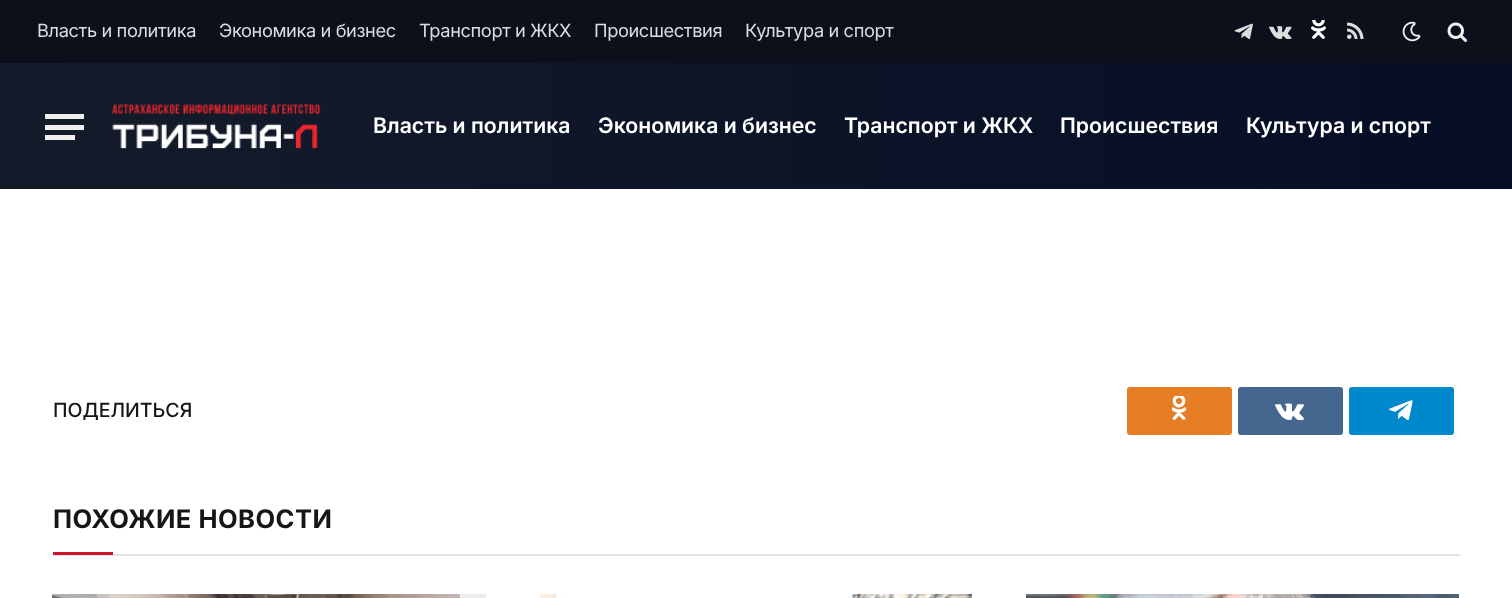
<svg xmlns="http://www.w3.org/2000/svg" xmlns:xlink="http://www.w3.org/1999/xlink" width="1512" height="598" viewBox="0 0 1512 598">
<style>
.cls-1{font:18.25px Inter;letter-spacing:-0.4px;fill:#dddddd}
.cls-2{font:600 21.25px Inter;fill:#ffffff}
.cls-3{font:500 19.5px Inter;fill:#161616}
.cls-4{font:bold 25.5px Inter;letter-spacing:0.5px;fill:#161616}
</style>
<defs>
<linearGradient id="g1" gradientUnits="userSpaceOnUse" x1="1512" y1="126" x2="0" y2="126"><stop offset="0" stop-color="#050e25"/><stop offset="1" stop-color="#141c2b"/></linearGradient>
</defs>
<rect width="100%" height="100%" fill="#ffffff"/>
<rect fill="#0b101b" x="0" y="0" width="1512" height="63"/>
<image xlink:href="image0.png" x="1234" y="23" width="19" height="16"/>
<image xlink:href="image1.png" x="1269" y="26" width="23" height="13"/>
<image xlink:href="image2.png" x="1311" y="20" width="15" height="19"/>
<image xlink:href="image3.png" x="1347" y="22" width="17" height="17"/>
<image xlink:href="image4.png" x="1402" y="21" width="19" height="21"/>
<image xlink:href="image5.png" x="1447" y="22" width="20" height="20"/>
<rect fill="url(#g1)" x="0" y="63" width="1512" height="126"/>
<rect fill="#f0f0f0" x="45" y="135" width="30" height="5"/>
<rect fill="#f0f0f0" x="45" y="114" width="39" height="5"/>
<rect fill="#f0f0f0" x="45" y="125" width="39" height="5"/>
<image xlink:href="image6.png" x="112" y="104" width="209" height="45"/>
<rect fill="#e57e25" x="1127" y="387" width="105" height="48" rx="3"/>
<image xlink:href="image7.png" x="1172" y="396" width="15" height="24"/>
<rect fill="#45668e" x="1238" y="387" width="105" height="48" rx="3"/>
<image xlink:href="image8.png" x="1275" y="403" width="29" height="17"/>
<rect fill="#0088cc" x="1349" y="387" width="105" height="48" rx="3"/>
<image xlink:href="image9.png" x="1389" y="400" width="24" height="20"/>
<rect fill="#e2e2e2" x="53" y="554" width="1407" height="2"/>
<rect fill="#d1142e" x="53" y="552" width="60" height="3"/>
<image xlink:href="image10.png" x="52" y="594" width="434" height="4"/>
<image xlink:href="image11.png" x="540" y="594" width="432" height="4"/>
<image xlink:href="image12.png" x="1026" y="594" width="433" height="4"/>
<text class="cls-1" x="37" y="37">Власть и политика</text>
<text class="cls-1" x="219" y="37">Экономика и бизнес</text>
<text class="cls-1" x="419" y="37">Транспорт и ЖКХ</text>
<text class="cls-1" x="594" y="37">Происшествия</text>
<text class="cls-1" x="745" y="37">Культура и спорт</text>
<text class="cls-2" x="373" y="133">Власть и политика</text>
<text class="cls-2" x="598" y="133">Экономика и бизнес</text>
<text class="cls-2" x="844" y="133">Транспорт и ЖКХ</text>
<text class="cls-2" x="1060" y="133">Происшествия</text>
<text class="cls-2" x="1246" y="133">Культура и спорт</text>
<text class="cls-3" x="53" y="417">ПОДЕЛИТЬСЯ</text>
<text class="cls-4" x="53" y="528">ПОХОЖИЕ НОВОСТИ</text>
</svg>
